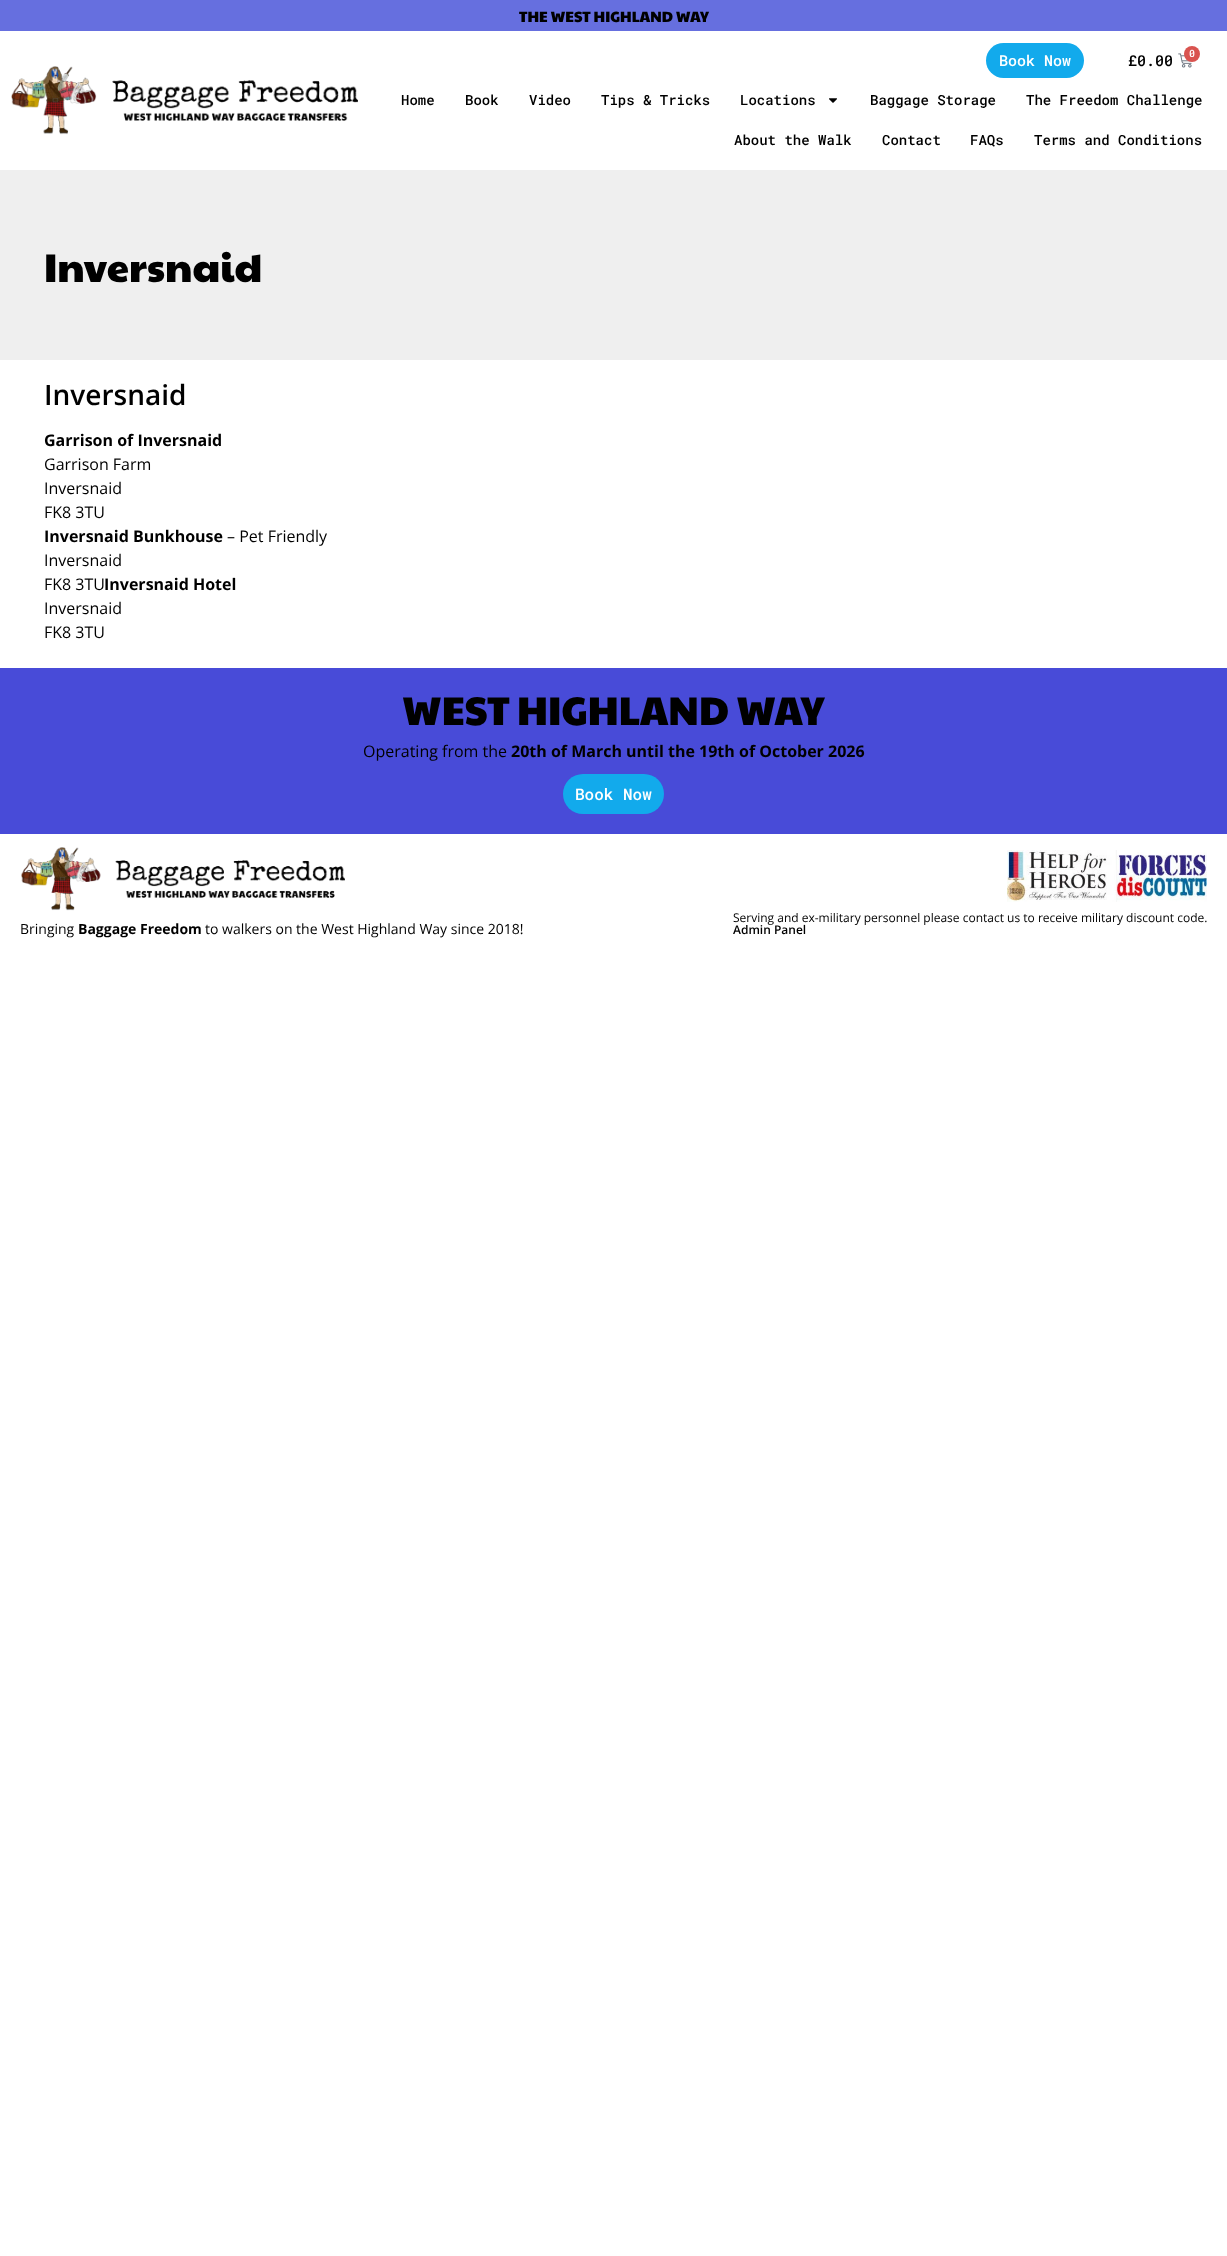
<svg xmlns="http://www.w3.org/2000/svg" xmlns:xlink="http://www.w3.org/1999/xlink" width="1227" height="2256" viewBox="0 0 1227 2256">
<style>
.cls-1{font:15px Paytone One;fill:#000000}
.cls-2{font:500 15px Roboto Mono;fill:#ffffff}
.cls-3{font:500 10px Roboto Mono;fill:#ffffff}
.cls-4{font:500 15px Roboto Mono;fill:#000000}
.cls-5{font:500 14px Roboto Mono;fill:#000000}
.cls-6{font:40px Paytone One;fill:#000000}
.cls-7{font:600 28px Open Sans;fill:#000000}
.cls-8{font:bold 16px Open Sans;fill:#000000}
.cls-9{font:16px Open Sans;fill:#000000}
.cls-10{font:500 16px Roboto Mono;fill:#ffffff}
.cls-11{font:14px Open Sans;fill:#000000}
.cls-12{font:bold 14px Open Sans;fill:#000000}
.cls-13{font:12px Open Sans;fill:#000000}
.cls-14{font:600 12px Open Sans;fill:#000000}
</style>
<rect width="100%" height="100%" fill="#ffffff"/>
<rect fill="#666fdf" x="0" y="0" width="1227" height="31"/>
<image xlink:href="image0.png" x="11" y="66" width="347" height="69"/>
<rect fill="#12aaec" x="986" y="43" width="98" height="35" rx="17.5"/>
<image xlink:href="image1.png" x="1178" y="53" width="14" height="15"/>
<circle fill="#d9534f" cx="1192" cy="54" r="8"/>
<image xlink:href="image2.png" x="829" y="98" width="8" height="5"/>
<rect fill="#efefef" x="0" y="170" width="1227" height="190"/>
<rect fill="#484bd8" x="0" y="668" width="1227" height="166"/>
<rect fill="#12aaec" x="563" y="774" width="101" height="40" rx="20"/>
<image xlink:href="image3.png" x="21" y="847" width="324" height="64"/>
<image xlink:href="image4.png" x="1007" y="850" width="200" height="52"/>
<text class="cls-1" x="519" y="22">THE WEST HIGHLAND WAY</text>
<text class="cls-2" x="999" y="66">Book Now</text>
<text class="cls-3" x="1189" y="57">0</text>
<text class="cls-4" x="1128" y="66">£0.00</text>
<text class="cls-5" x="401" y="105">Home</text>
<text class="cls-5" x="465" y="105">Book</text>
<text class="cls-5" x="529" y="105">Video</text>
<text class="cls-5" x="601" y="105">Tips &amp; Tricks</text>
<text class="cls-5" x="740" y="105">Locations</text>
<text class="cls-5" x="870" y="105">Baggage Storage</text>
<text class="cls-5" x="1026" y="105">The Freedom Challenge</text>
<text class="cls-5" x="734" y="145">About the Walk</text>
<text class="cls-5" x="882" y="145">Contact</text>
<text class="cls-5" x="970" y="145">FAQs</text>
<text class="cls-5" x="1034" y="145">Terms and Conditions</text>
<text class="cls-6" x="44" y="282">Inversnaid</text>
<text class="cls-7" x="44" y="405">Inversnaid</text>
<text class="cls-8" x="44" y="446">Garrison of Inversnaid</text>
<text class="cls-9"><tspan x="44" y="470">Garrison Farm</tspan><tspan x="44" y="494">Inversnaid</tspan><tspan x="44" y="518">FK8 3TU</tspan></text>
<text class="cls-8" x="44" y="542">Inversnaid Bunkhouse</text>
<text class="cls-9" x="227" y="542">– Pet Friendly</text>
<text class="cls-9"><tspan x="44" y="566">Inversnaid</tspan><tspan x="44" y="590">FK8 3TU</tspan></text>
<text class="cls-8" x="104" y="590">Inversnaid Hotel</text>
<text class="cls-9"><tspan x="44" y="614">Inversnaid</tspan><tspan x="44" y="638">FK8 3TU</tspan></text>
<text class="cls-6" x="402" y="725">WEST HIGHLAND WAY</text>
<text class="cls-9" x="363" y="757">Operating from the</text>
<text class="cls-8" x="511" y="757">20th of March until the 19th of October 2026</text>
<text class="cls-10" x="575" y="800">Book Now</text>
<text class="cls-11" x="20" y="934">Bringing</text>
<text class="cls-12" x="78" y="934">Baggage Freedom</text>
<text class="cls-11" x="205" y="934">to walkers on the West Highland Way since 2018!</text>
<text class="cls-13" x="733" y="922">Serving and ex-military personnel please contact us to receive military discount code.</text>
<text class="cls-14" x="733" y="934">Admin Panel</text>
</svg>
